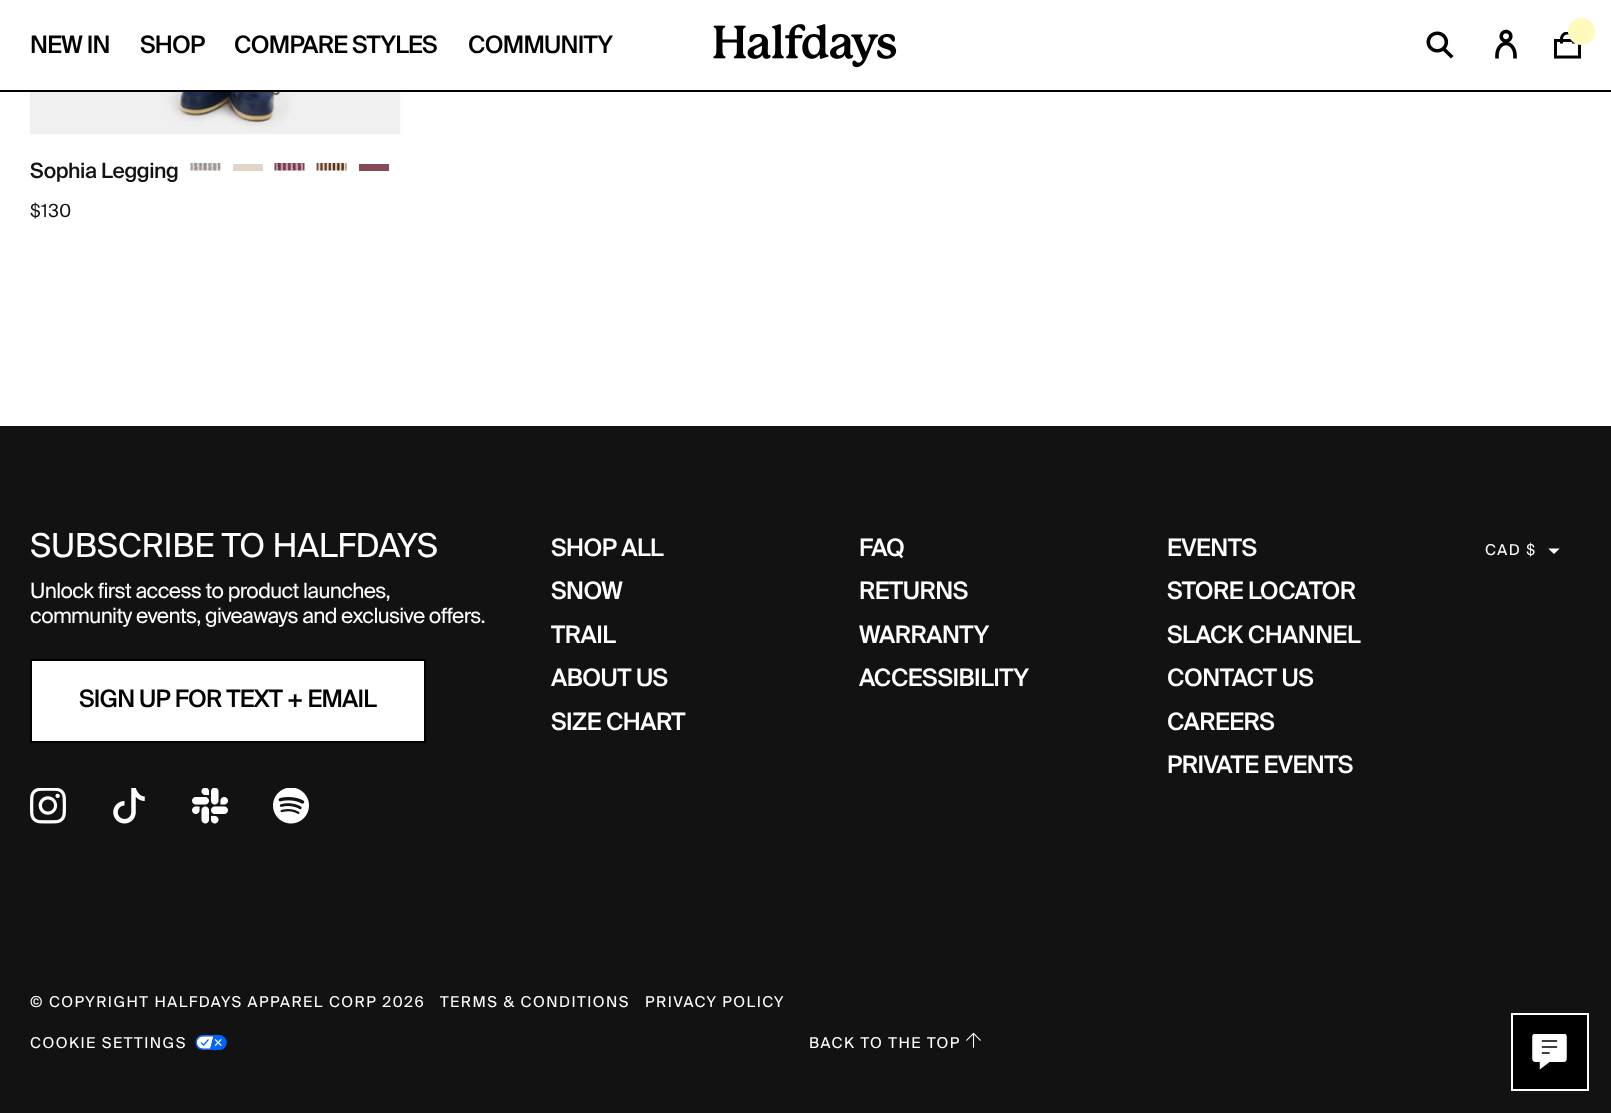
<svg xmlns="http://www.w3.org/2000/svg" xmlns:xlink="http://www.w3.org/1999/xlink" width="1611" height="1113" viewBox="0 0 1611 1113">
<style>
.cls-1{font:500 24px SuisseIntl;letter-spacing:-0.75px;fill:#000000}
.cls-2{font:500 21px SuisseIntl;letter-spacing:-0.4px;fill:#121212}
.cls-3{font:18px SuisseIntl;letter-spacing:0.5px;fill:#121212}
.cls-4{font:33px SuisseIntl;letter-spacing:-0.25px;fill:#ffffff}
.cls-5{font:21px SuisseIntl;letter-spacing:-0.65px;fill:#ffffff}
.cls-6{font:500 24px SuisseIntl;letter-spacing:-0.5px;fill:#ffffff}
.cls-7{font:15px SuisseIntl;letter-spacing:1.5px;fill:#ffffff}
</style>
<rect width="100%" height="100%" fill="#ffffff"/>
<rect fill="#000000" x="0" y="90" width="1611" height="2"/>
<image xlink:href="image0.png" x="713" y="24" width="184" height="44"/>
<image xlink:href="image1.png" x="1426" y="31" width="28" height="28"/>
<image xlink:href="image2.png" x="1495" y="29" width="22" height="30"/>
<image xlink:href="image3.png" x="1554" y="32" width="27" height="27"/>
<circle fill="#fff9bb" cx="1581.5" cy="31.5" r="13.5"/>
<image xlink:href="image4.png" x="30" y="92" width="371" height="43"/>
<image xlink:href="image5.png" x="190" y="163" width="31" height="8"/>
<rect fill="#e0d5c6" x="233" y="164" width="30" height="7"/>
<image xlink:href="image6.png" x="274" y="163" width="31" height="8"/>
<image xlink:href="image7.png" x="316" y="163" width="31" height="8"/>
<rect fill="#854a56" x="359" y="164" width="30" height="7"/>
<rect fill="#121212" x="0" y="426" width="1611" height="687"/>
<rect fill="#ffffff" stroke="#000000" stroke-width="2" x="31" y="660" width="394" height="82"/>
<image xlink:href="image8.png" x="30" y="788" width="36" height="36"/>
<image xlink:href="image9.png" x="113" y="788" width="32" height="36"/>
<image xlink:href="image10.png" x="192" y="788" width="36" height="36"/>
<image xlink:href="image11.png" x="273" y="788" width="36" height="36"/>
<image xlink:href="image12.png" x="1548" y="548" width="12" height="6"/>
<image xlink:href="image13.png" x="195" y="1035" width="32" height="15"/>
<image xlink:href="image14.png" x="966" y="1032" width="15" height="16"/>
<rect fill="#000000" stroke="#ffffff" stroke-width="2" x="1512" y="1014" width="76" height="76"/>
<image xlink:href="image15.png" x="1532" y="1034" width="35" height="36"/>
<text class="cls-1" x="30" y="53">NEW IN</text>
<text class="cls-1" x="140" y="53">SHOP</text>
<text class="cls-1" x="234" y="53">COMPARE STYLES</text>
<text class="cls-1" x="468" y="53">COMMUNITY</text>
<text class="cls-2" x="30" y="178">Sophia Legging</text>
<text class="cls-3" x="30" y="217">$130</text>
<text class="cls-4" x="30" y="557">SUBSCRIBE TO HALFDAYS</text>
<text class="cls-5"><tspan x="30" y="598">Unlock first access to product launches,</tspan><tspan x="30" y="623">community events, giveaways and exclusive offers.</tspan></text>
<text class="cls-1" x="79" y="707">SIGN UP FOR TEXT + EMAIL</text>
<text class="cls-6"><tspan x="551" y="556">SHOP ALL</tspan><tspan x="551" y="599">SNOW</tspan><tspan x="551" y="643">TRAIL</tspan><tspan x="551" y="686">ABOUT US</tspan><tspan x="551" y="730">SIZE CHART</tspan></text>
<text class="cls-6"><tspan x="859" y="556">FAQ</tspan><tspan x="859" y="599">RETURNS</tspan><tspan x="859" y="643">WARRANTY</tspan><tspan x="859" y="686">ACCESSIBILITY</tspan></text>
<text class="cls-6"><tspan x="1167" y="556">EVENTS</tspan><tspan x="1167" y="599">STORE LOCATOR</tspan><tspan x="1167" y="643">SLACK CHANNEL</tspan><tspan x="1167" y="686">CONTACT US</tspan><tspan x="1167" y="730">CAREERS</tspan><tspan x="1167" y="773">PRIVATE EVENTS</tspan></text>
<text class="cls-7" x="1485" y="555">CAD $</text>
<text class="cls-7" x="30" y="1007">© COPYRIGHT HALFDAYS APPAREL CORP 2026</text>
<text class="cls-7" x="440" y="1007">TERMS &amp; CONDITIONS</text>
<text class="cls-7" x="645" y="1007">PRIVACY POLICY</text>
<text class="cls-7" x="30" y="1048">COOKIE SETTINGS</text>
<text class="cls-7" x="809" y="1048">BACK TO THE TOP</text>
</svg>
